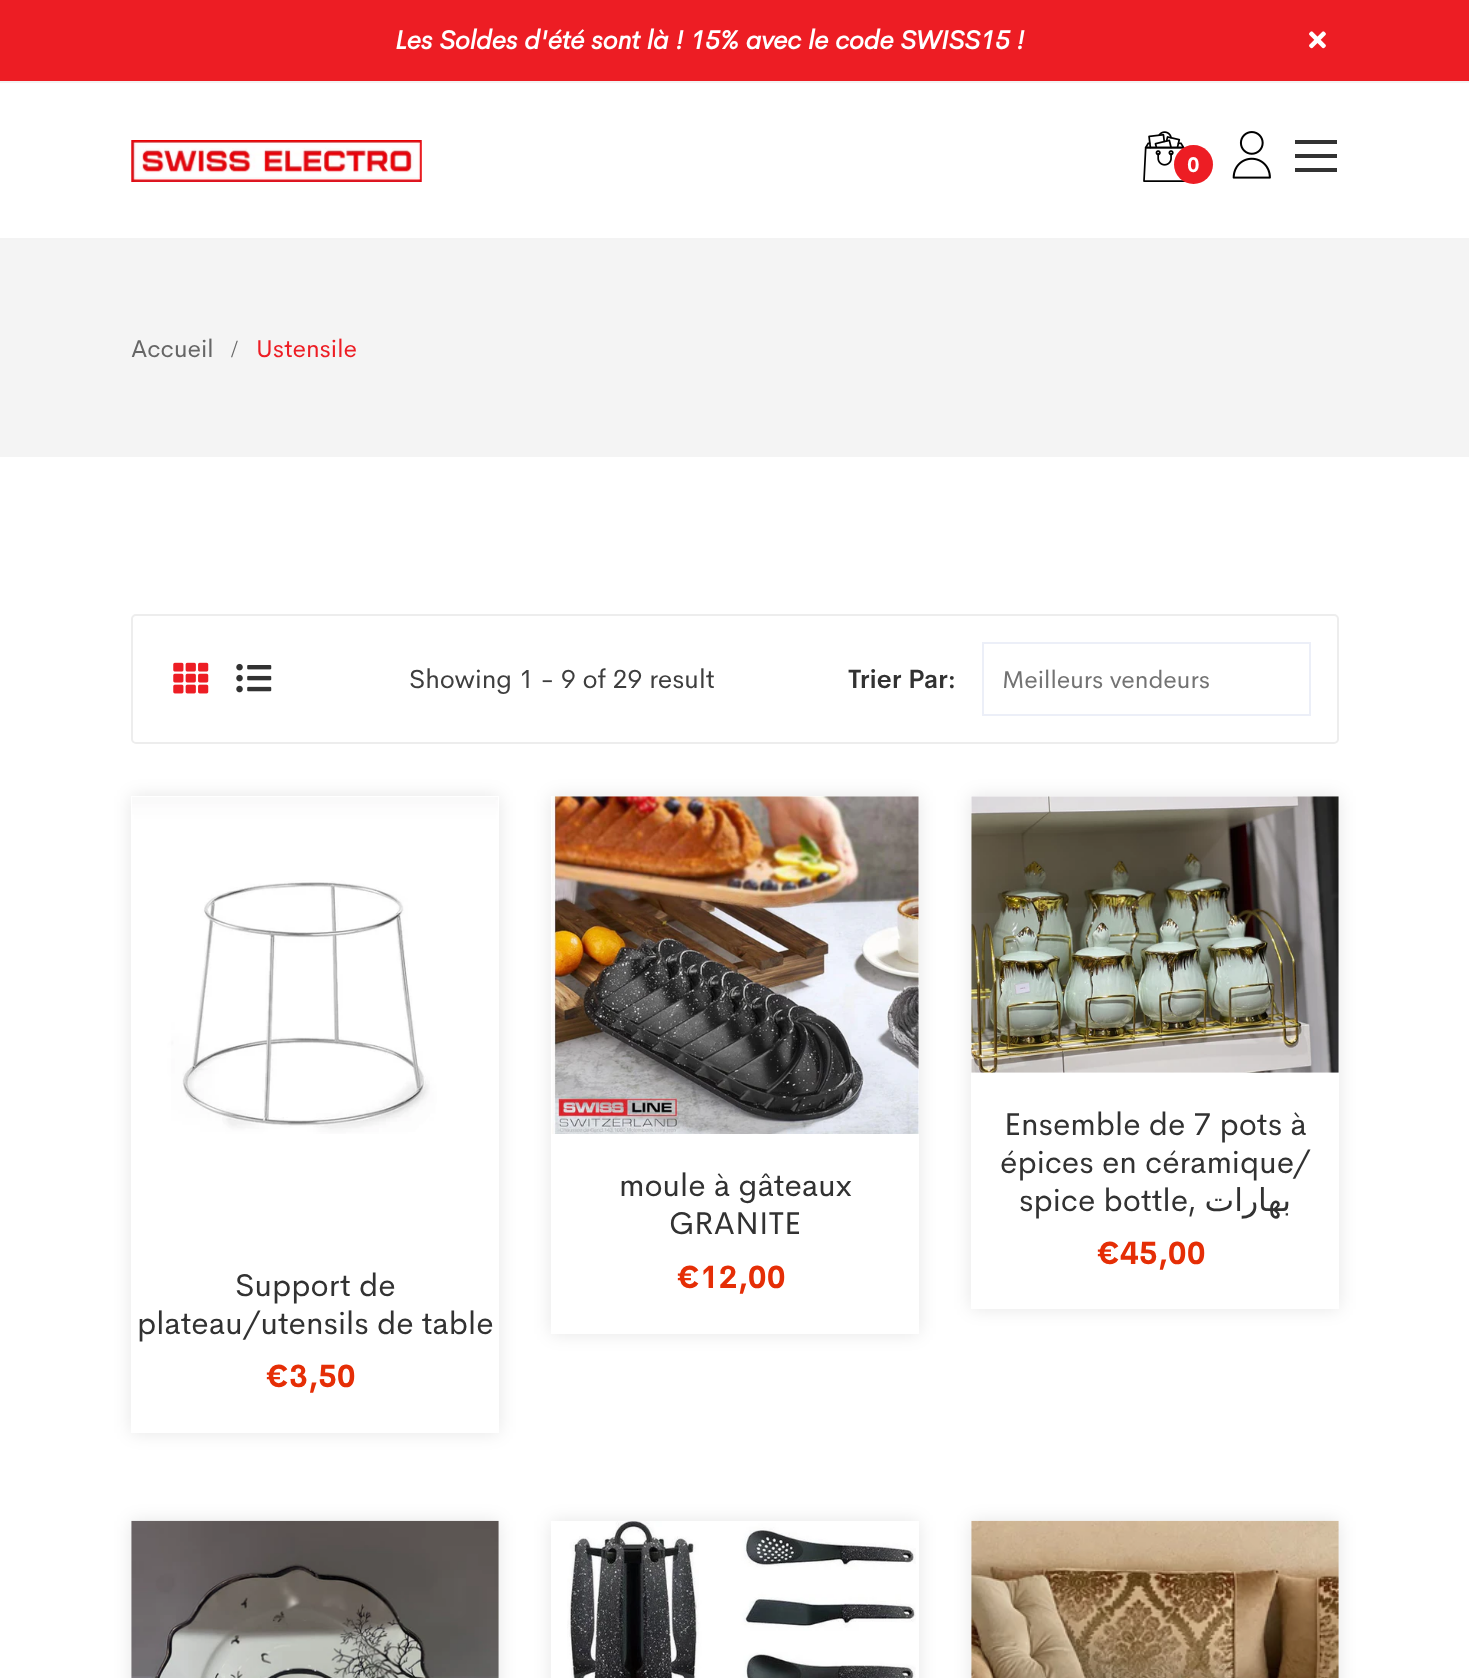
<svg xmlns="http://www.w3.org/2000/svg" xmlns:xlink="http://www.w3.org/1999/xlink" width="1469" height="1678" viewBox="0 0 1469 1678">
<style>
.cls-1{font:italic bold 26.25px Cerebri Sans;fill:#ffffff}
.cls-2{font:bold 21px Cerebri Sans;fill:#ffffff}
.cls-3{font:24.5px Cerebri Sans;fill:#666666}
.cls-4{font:24.5px Liberation Serif;fill:#666666}
.cls-5{font:24.5px Cerebri Sans;fill:#ed1d24}
.cls-6{font:26.25px Cerebri Sans;fill:#3e3e3e}
.cls-7{font:600 26.25px Cerebri Sans;fill:#323232}
.cls-8{font:24.5px Cerebri Sans;fill:#737373}
.cls-9{font:31.5px Cerebri Sans;fill:#323232}
.cls-10{font:bold 31.5px Cerebri Sans;fill:#e52e06}
.cls-11{font:31.5px DejaVu Sans;direction:rtl;fill:#323232}
</style>
<defs>
<clipPath id="clip1"><path d="M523 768H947V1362H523ZM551 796H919V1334H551Z" clip-rule="evenodd"/></clipPath>
<clipPath id="clip2"><path d="M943 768H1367V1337H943ZM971 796H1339V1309H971Z" clip-rule="evenodd"/></clipPath>
<clipPath id="clip3"><path d="M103 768H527V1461H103ZM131 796H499V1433H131Z" clip-rule="evenodd"/></clipPath>
<clipPath id="clip4"><path d="M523 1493H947V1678H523ZM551 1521H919V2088H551Z" clip-rule="evenodd"/></clipPath>
</defs>
<rect width="100%" height="100%" fill="#ffffff"/>
<rect fill="#ed1d24" x="0" y="0" width="1469" height="81"/>
<image xlink:href="image0.png" x="1309" y="31" width="17" height="18"/>
<rect fill="#f3f3f3" x="0" y="81" width="1469" height="2"/>
<rect fill="#f3f3f3" x="0" y="238" width="1469" height="2"/>
<image xlink:href="image1.png" x="131" y="140" width="291" height="42"/>
<image xlink:href="image2.png" x="1143" y="131" width="42" height="51"/>
<circle fill="#ed1d24" cx="1193.5" cy="164.5" r="19.5"/>
<image xlink:href="image3.png" x="1232" y="131" width="39" height="48"/>
<rect fill="#323232" x="1295" y="154" width="42" height="4"/>
<rect fill="#323232" x="1295" y="140" width="42" height="4"/>
<rect fill="#323232" x="1295" y="168" width="42" height="4"/>
<rect fill="#f4f4f4" x="0" y="240" width="1469" height="217"/>
<rect fill="none" stroke="#ededed" stroke-width="2" x="132" y="615" width="1206" height="128" rx="4"/>
<image xlink:href="image4.png" x="173" y="662" width="36" height="32"/>
<image xlink:href="image5.png" x="236" y="663" width="36" height="30"/>
<rect fill="none" stroke="#eceff8" stroke-width="2" x="983" y="643" width="327" height="72"/>
<g clip-path="url(#clip1)">
<rect fill="#000000" fill-opacity="0.1" filter="blur(9px)" x="551" y="796" width="368" height="538"/>
</g>
<image xlink:href="image6.png" x="551" y="796" width="368" height="338"/>
<g clip-path="url(#clip2)">
<rect fill="#000000" fill-opacity="0.1" filter="blur(9px)" x="971" y="796" width="368" height="513"/>
</g>
<image xlink:href="image7.png" x="971" y="796" width="368" height="277"/>
<g clip-path="url(#clip3)">
<rect fill="#000000" fill-opacity="0.1" filter="blur(9px)" x="131" y="796" width="368" height="637"/>
</g>
<image xlink:href="image8.png" x="132" y="797" width="366" height="337"/>
<rect fill="#000000" fill-opacity="0.1" filter="blur(9px)" x="131" y="1521" width="368" height="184"/>
<image xlink:href="image9.png" x="131" y="1520" width="368" height="158"/>
<g clip-path="url(#clip4)">
<rect fill="#000000" fill-opacity="0.1" filter="blur(9px)" x="551" y="1521" width="368" height="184"/>
</g>
<image xlink:href="image10.png" x="567" y="1521" width="349" height="157"/>
<rect fill="#000000" fill-opacity="0.1" filter="blur(9px)" x="971" y="1521" width="368" height="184"/>
<image xlink:href="image11.png" x="971" y="1520" width="368" height="158"/>
<text class="cls-1" x="395" y="49">Les Soldes d'été sont là ! 15% avec le code SWISS15 !</text>
<text class="cls-2" x="1187" y="172">0</text>
<text class="cls-3" x="131" y="357">Accueil</text>
<text class="cls-4" x="231" y="357">/</text>
<text class="cls-5" x="256" y="357">Ustensile</text>
<text class="cls-6" x="409" y="688">Showing 1 - 9 of 29 result</text>
<text class="cls-7" x="848" y="688">Trier Par:</text>
<text class="cls-8" x="1002" y="688">Meilleurs vendeurs</text>
<text class="cls-9" x="619" y="1196">moule à gâteaux</text>
<text class="cls-9" x="669" y="1234">GRANITE</text>
<text class="cls-10" x="676" y="1288">€12,00</text>
<text class="cls-9" x="1004" y="1135">Ensemble de 7 pots à</text>
<text class="cls-9" x="1000" y="1173">épices en céramique/</text>
<text class="cls-9" x="1019" y="1211">spice bottle,</text>
<text class="cls-11" x="1291" y="1211">بهارات</text>
<text class="cls-10" x="1096" y="1264">€45,00</text>
<text class="cls-9" x="235" y="1296">Support de</text>
<text class="cls-9" x="137" y="1334">plateau/utensils de table</text>
<text class="cls-10" x="265" y="1387">€3,50</text>
</svg>
